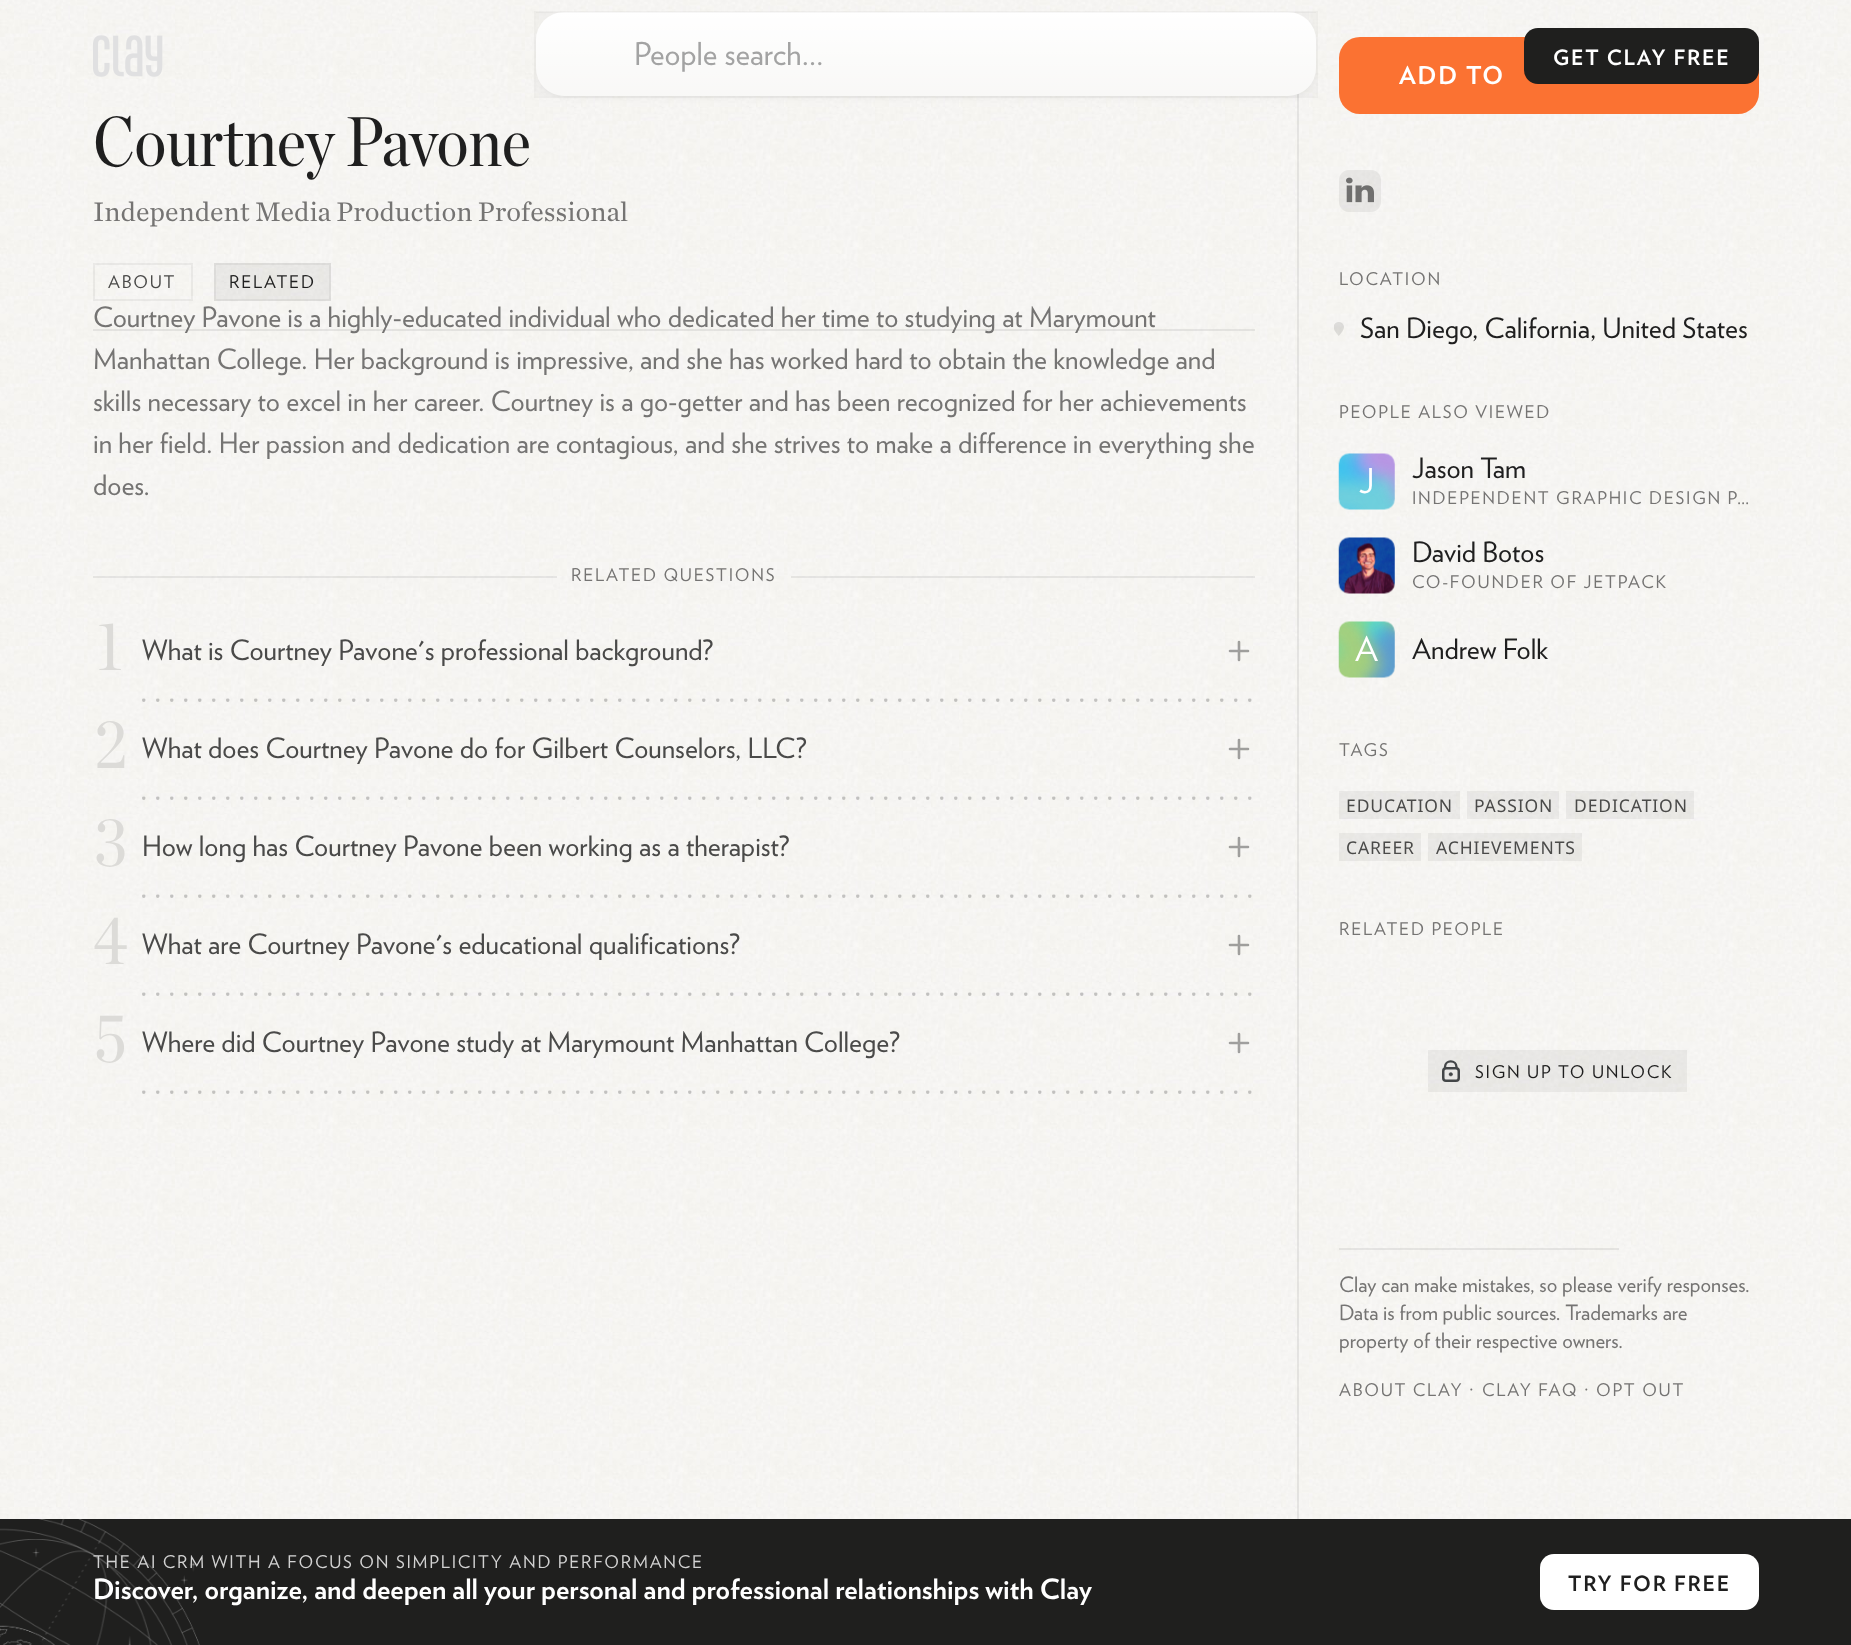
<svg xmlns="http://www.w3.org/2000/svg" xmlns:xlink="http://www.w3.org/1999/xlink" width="1851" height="1645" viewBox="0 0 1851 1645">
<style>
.cls-1{font:31.5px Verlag;fill:#a3a3a3}
.cls-2{font:bold 21px Verlag;letter-spacing:1.75px;fill:#ffffff}
.cls-3{font:70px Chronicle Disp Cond;fill:#1f1f1f}
.cls-4{font:28px 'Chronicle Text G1';fill:#757473}
.cls-5{font:17.5px Verlag;letter-spacing:1.75px;fill:#4a4a49}
.cls-6{font:17.5px Verlag;letter-spacing:1.75px;fill:#1f1f1f}
.cls-7{font:28px Verlag;fill:#757473}
.cls-8{font:17.5px Verlag;letter-spacing:1.75px;fill:#757473}
.cls-9{font:70px Chronicle Disp Cond;fill:#dcdbd8}
.cls-10{font:28px Verlag;fill:#4a4a49}
.cls-11{font:bold 24.5px Verlag;letter-spacing:1.75px;fill:#ffffff}
.cls-12{font:28px Verlag;fill:#1f1f1f}
.cls-13{font:34px Verlag;fill:#ffffff}
.cls-14{font:17.5px Noto Sans;letter-spacing:0.9px;fill:#4a4a49}
.cls-15{font:21px Verlag;fill:#757473}
.cls-16{font:7px Verlag;letter-spacing:1.75px;fill:#757473}
.cls-17{font:17.5px Verlag;letter-spacing:1.75px;fill:#d2d2d2}
.cls-18{font:bold 28px Verlag;fill:#ffffff}
.cls-19{font:bold 21px Verlag;letter-spacing:1.75px;fill:#1f1f1f}
</style>
<defs>
<linearGradient id="g1" gradientUnits="userSpaceOnUse" x1="926" y1="12" x2="926" y2="96"><stop offset="0" stop-color="#ffffff"/><stop offset="1" stop-color="#ffffff" stop-opacity="0.5"/></linearGradient>
</defs>
<rect width="100%" height="100%" fill="#ffffff"/>
<image xlink:href="image0.png" x="0" y="0" width="1851" height="1519"/>
<image xlink:href="image1.png" x="93" y="35" width="70" height="42"/>
<rect fill="#1f1f1f" fill-opacity="0.08" x="1297" y="93" width="2" height="1426"/>
<rect fill="#000000" fill-opacity="0.08" filter="blur(3.5px)" x="539" y="19" width="774" height="77" rx="25"/>
<rect fill="#f8f7f4" x="536" y="12" width="780" height="84" rx="28"/>
<rect fill="#959595" fill-opacity="0.06" x="536" y="12" width="780" height="84"/>
<rect fill="url(#g1)" x="536" y="12" width="780" height="84" rx="28"/>
<rect fill="none" stroke="#000000" stroke-opacity="0.03" stroke-width="2" x="535" y="12" width="782" height="85"/>
<rect fill="#fb7232" x="1339" y="37" width="420" height="77" rx="21"/>
<rect fill="#1f1f1e" x="1524" y="28" width="235" height="56" rx="14"/>
<rect fill="#1f1f1f" fill-opacity="0.08" x="93" y="329" width="1162" height="2"/>
<rect fill="none" stroke="#1f1f1f" stroke-opacity="0.06" stroke-width="2" x="94" y="264" width="98" height="36"/>
<rect fill="#1f1f1f" fill-opacity="0.06" x="214" y="263" width="117" height="38"/>
<rect fill="none" stroke="#1f1f1f" stroke-opacity="0.06" stroke-width="2" x="215" y="264" width="115" height="36"/>
<rect fill="#1f1f1f" fill-opacity="0.08" x="93" y="576" width="464" height="2"/>
<rect fill="#1f1f1f" fill-opacity="0.08" x="791" y="576" width="464" height="2"/>
<path fill="none" stroke="#1f1f1e" stroke-opacity="0.4" stroke-width="2.6" stroke-linecap="round" d="M1230 651H1248M1239 660V642"/>
<image xlink:href="image2.png" x="142" y="698" width="1110" height="4"/>
<path fill="none" stroke="#1f1f1e" stroke-opacity="0.4" stroke-width="2.6" stroke-linecap="round" d="M1230 749H1248M1239 758V740"/>
<image xlink:href="image3.png" x="142" y="796" width="1110" height="4"/>
<path fill="none" stroke="#1f1f1e" stroke-opacity="0.4" stroke-width="2.6" stroke-linecap="round" d="M1230 847H1248M1239 856V838"/>
<image xlink:href="image4.png" x="142" y="894" width="1110" height="4"/>
<path fill="none" stroke="#1f1f1e" stroke-opacity="0.4" stroke-width="2.6" stroke-linecap="round" d="M1230 945H1248M1239 954V936"/>
<image xlink:href="image5.png" x="142" y="992" width="1110" height="4"/>
<path fill="none" stroke="#1f1f1e" stroke-opacity="0.4" stroke-width="2.6" stroke-linecap="round" d="M1230 1043H1248M1239 1052V1034"/>
<image xlink:href="image6.png" x="142" y="1090" width="1110" height="4"/>
<image xlink:href="image7.png" x="1339" y="170" width="42" height="42"/>
<image xlink:href="image8.png" x="1334" y="322" width="10" height="14"/>
<image xlink:href="image9.png" x="1338" y="453" width="57" height="57"/>
<image xlink:href="image10.png" x="1338" y="537" width="57" height="57"/>
<image xlink:href="image11.png" x="1338" y="621" width="57" height="57"/>
<rect fill="#1f1f1f" fill-opacity="0.06" x="1339" y="791" width="121" height="28"/>
<rect fill="#1f1f1f" fill-opacity="0.06" x="1467" y="791" width="92" height="28"/>
<rect fill="#1f1f1f" fill-opacity="0.06" x="1566" y="791" width="128" height="28"/>
<rect fill="#1f1f1f" fill-opacity="0.06" x="1339" y="833" width="82" height="28"/>
<rect fill="#1f1f1f" fill-opacity="0.06" x="1428" y="833" width="154" height="28"/>
<rect fill="#1f1f1e" fill-opacity="0.06" x="1428" y="1050" width="259" height="42"/>
<path fill="none" stroke="#434648" stroke-width="2.4" stroke-linecap="round" d="M1456.5 1067C1456.5 1059.5 1445 1059.5 1445 1067"/>
<rect fill="none" stroke="#434648" stroke-width="2.5" x="1443.25" y="1068.25" width="15.5" height="12.5" rx="2.75"/>
<circle fill="#434648" stroke="#434648" stroke-width="0.4" cx="1450.8" cy="1074.3" r="1.8"/>
<rect fill="#1f1f1f" fill-opacity="0.08" x="1339" y="1248" width="280" height="2"/>
<rect fill="#1f1f1e" x="0" y="1519" width="1851" height="126"/>
<image xlink:href="image12.png" x="0" y="1519" width="200" height="126"/>
<rect fill="#ffffff" x="1540" y="1554" width="219" height="56" rx="14"/>
<text class="cls-1" x="634" y="65">People search…</text>
<text class="cls-2" x="1553" y="65">GET CLAY FREE</text>
<text class="cls-3" x="93" y="166">Courtney Pavone</text>
<text class="cls-4" x="93" y="221">Independent Media Production Professional</text>
<text class="cls-5" x="108" y="288">ABOUT</text>
<text class="cls-6" x="229" y="288">RELATED</text>
<text class="cls-7"><tspan x="93" y="327">Courtney Pavone is a highly-educated individual who dedicated her time to studying at Marymount</tspan><tspan x="93" y="369">Manhattan College. Her background is impressive, and she has worked hard to obtain the knowledge and</tspan><tspan x="93" y="411">skills necessary to excel in her career. Courtney is a go-getter and has been recognized for her achievements</tspan><tspan x="93" y="453">in her field. Her passion and dedication are contagious, and she strives to make a difference in everything she</tspan><tspan x="93" y="495">does.</tspan></text>
<text class="cls-8" x="571" y="581">RELATED QUESTIONS</text>
<text class="cls-9" x="97" y="670">1</text>
<text class="cls-10" x="142" y="660">What is Courtney Pavone's professional background?</text>
<text class="cls-9" x="94" y="768">2</text>
<text class="cls-10" x="142" y="758">What does Courtney Pavone do for Gilbert Counselors, LLC?</text>
<text class="cls-9" x="94" y="866">3</text>
<text class="cls-10" x="142" y="856">How long has Courtney Pavone been working as a therapist?</text>
<text class="cls-9" x="93" y="964">4</text>
<text class="cls-10" x="142" y="954">What are Courtney Pavone's educational qualifications?</text>
<text class="cls-9" x="94" y="1062">5</text>
<text class="cls-10" x="142" y="1052">Where did Courtney Pavone study at Marymount Manhattan College?</text>
<text class="cls-11" x="1399" y="84">ADD TO</text>
<text class="cls-8" x="1339" y="285">LOCATION</text>
<text class="cls-12" x="1360" y="338">San Diego, California, United States</text>
<text class="cls-8" x="1339" y="418">PEOPLE ALSO VIEWED</text>
<text class="cls-13" x="1359" y="493">J</text>
<text class="cls-12" x="1412" y="478">Jason Tam</text>
<text class="cls-8" x="1412" y="504">INDEPENDENT GRAPHIC DESIGN P…</text>
<text class="cls-12" x="1412" y="562">David Botos</text>
<text class="cls-8" x="1412" y="588">CO-FOUNDER OF JETPACK</text>
<text class="cls-13" x="1355" y="661">A</text>
<text class="cls-12" x="1412" y="659">Andrew Folk</text>
<text class="cls-8" x="1339" y="756">TAGS</text>
<text class="cls-14" x="1346" y="812">EDUCATION</text>
<text class="cls-14" x="1474" y="812">PASSION</text>
<text class="cls-14" x="1574" y="812">DEDICATION</text>
<text class="cls-14" x="1346" y="854">CAREER</text>
<text class="cls-14" x="1436" y="854">ACHIEVEMENTS</text>
<text class="cls-8" x="1339" y="935">RELATED PEOPLE</text>
<text class="cls-6" x="1475" y="1078">SIGN UP TO UNLOCK</text>
<text class="cls-15"><tspan x="1339" y="1292">Clay can make mistakes, so please verify responses.</tspan><tspan x="1339" y="1320">Data is from public sources. Trademarks are</tspan><tspan x="1339" y="1348">property of their respective owners.</tspan></text>
<text class="cls-8" x="1339" y="1396">ABOUT CLAY</text>
<text class="cls-16" x="1470" y="1392">•</text>
<text class="cls-8" x="1482" y="1396">CLAY FAQ</text>
<text class="cls-16" x="1585" y="1392">•</text>
<text class="cls-8" x="1596" y="1396">OPT OUT</text>
<text class="cls-17" x="93" y="1568">THE AI CRM WITH A FOCUS ON SIMPLICITY AND PERFORMANCE</text>
<text class="cls-18" x="93" y="1599">Discover, organize, and deepen all your personal and professional relationships with Clay</text>
<text class="cls-19" x="1568" y="1591">TRY FOR FREE</text>
</svg>
